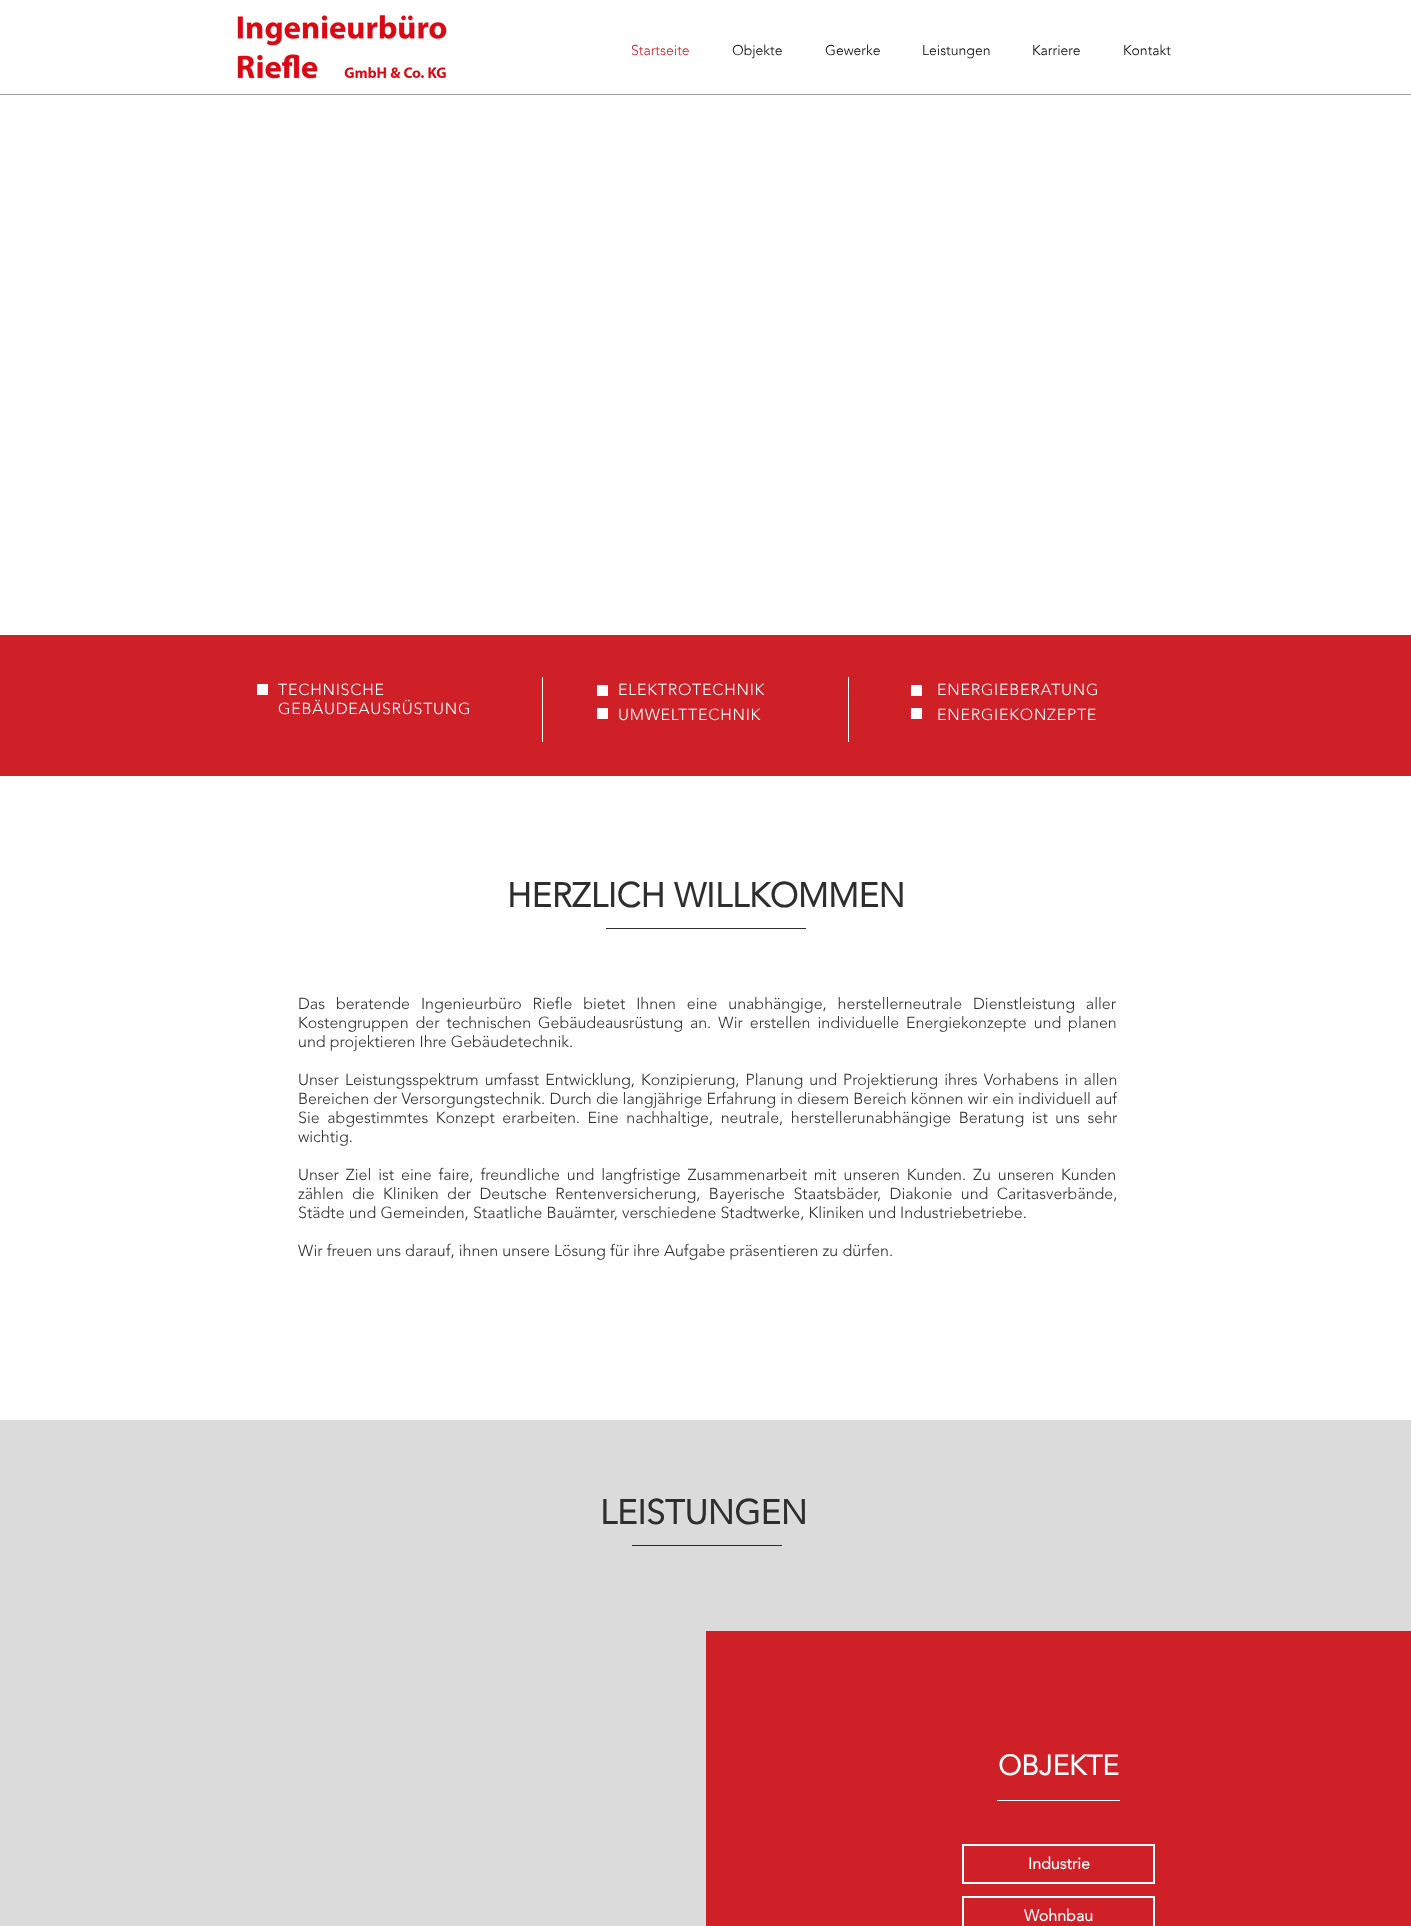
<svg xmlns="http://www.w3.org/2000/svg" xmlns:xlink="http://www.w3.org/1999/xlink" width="1411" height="1926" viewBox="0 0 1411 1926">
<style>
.cls-1{font:300 14px 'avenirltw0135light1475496';fill:#ce2026}
.cls-2{font:300 14px 'avenirltw0135light1475496';fill:#000000}
.cls-3{font:300 16px 'avenirltw0135light1475496';letter-spacing:0.75px;fill:#ffffff}
.cls-4{font:bold 34px 'avenirltw0135light1475496';fill:#2f2e2e}
.cls-5{font:300 16px 'avenirltw0135light1475496';fill:#2f2e2e}
.cls-6{font:bold 28px 'avenirltw0135light1475496';fill:#ffffff}
.cls-7{font:bold 16px 'avenirltw0135light1475496';fill:#ffffff}
</style>
<rect width="100%" height="100%" fill="#ffffff"/>
<image xlink:href="image0.png" x="237" y="15" width="210" height="64"/>
<rect fill="#a0a09f" x="0" y="94" width="1411" height="1"/>
<rect fill="#ce2026" x="0" y="635" width="1411" height="141"/>
<rect fill="#ffffff" x="257" y="684" width="11" height="11"/>
<rect fill="#ffffff" x="542" y="677" width="1" height="65"/>
<rect fill="#ffffff" x="597" y="685" width="11" height="11"/>
<rect fill="#ffffff" x="848" y="677" width="1" height="65"/>
<rect fill="#ffffff" x="911" y="685" width="11" height="11"/>
<rect fill="#ffffff" x="597" y="708" width="11" height="11"/>
<rect fill="#ffffff" x="911" y="708" width="11" height="11"/>
<rect fill="#2f2e2e" x="606" y="928" width="200" height="1"/>
<rect fill="#dbdbdb" x="0" y="1420" width="1411" height="506"/>
<rect fill="#2f2e2e" x="632" y="1545" width="150" height="1"/>
<rect fill="#ce2026" x="706" y="1631" width="705" height="295"/>
<rect fill="#ffffff" x="997" y="1800" width="123" height="1"/>
<rect fill="none" stroke="#ffffff" stroke-width="2" x="963" y="1845" width="191" height="38"/>
<rect fill="none" stroke="#ffffff" stroke-width="2" x="963" y="1897" width="191" height="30"/>
<text class="cls-1" x="631" y="55">Startseite</text>
<text class="cls-2" x="732" y="55">Objekte</text>
<text class="cls-2" x="825" y="55">Gewerke</text>
<text class="cls-2" x="922" y="55">Leistungen</text>
<text class="cls-2" x="1032" y="55">Karriere</text>
<text class="cls-2" x="1123" y="55">Kontakt</text>
<text class="cls-3"><tspan x="278" y="695">TECHNISCHE</tspan><tspan x="278" y="714">GEBÄUDEAUSRÜSTUNG</tspan></text>
<text class="cls-3" x="618" y="695">ELEKTROTECHNIK</text>
<text class="cls-3" x="937" y="695">ENERGIEBERATUNG</text>
<text class="cls-3" x="618" y="720">UMWELTTECHNIK</text>
<text class="cls-3" x="937" y="720">ENERGIEKONZEPTE</text>
<text class="cls-4" x="507" y="907">HERZLICH WILLKOMMEN</text>
<text class="cls-5"><tspan x="298" y="1009" word-spacing="6.75">Das beratende Ingenieurbüro Riefle bietet Ihnen eine unabhängige, herstellerneutrale Dienstleistung aller</tspan><tspan x="298" y="1028" word-spacing="2.75">Kostengruppen der technischen Gebäudeausrüstung an. Wir erstellen individuelle Energiekonzepte und planen</tspan><tspan x="298" y="1047">und projektieren Ihre Gebäudetechnik.</tspan></text>
<text class="cls-5"><tspan x="298" y="1085" word-spacing="1.9">Unser Leistungsspektrum umfasst Entwicklung, Konzipierung, Planung und Projektierung ihres Vorhabens in allen</tspan><tspan x="298" y="1104">Bereichen der Versorgungstechnik. Durch die langjährige Erfahrung in diesem Bereich können wir ein individuell auf</tspan><tspan x="298" y="1123" word-spacing="3.4">Sie abgestimmtes Konzept erarbeiten. Eine nachhaltige, neutrale, herstellerunabhängige Beratung ist uns sehr</tspan><tspan x="298" y="1142">wichtig.</tspan></text>
<text class="cls-5"><tspan x="298" y="1180" word-spacing="2.75">Unser Ziel ist eine faire, freundliche und langfristige Zusammenarbeit mit unseren Kunden. Zu unseren Kunden</tspan><tspan x="298" y="1199" word-spacing="4.25">zählen die Kliniken der Deutsche Rentenversicherung, Bayerische Staatsbäder, Diakonie und Caritasverbände,</tspan><tspan x="298" y="1218">Städte und Gemeinden, Staatliche Bauämter, verschiedene Stadtwerke, Kliniken und Industriebetriebe.</tspan></text>
<text class="cls-5" x="298" y="1256">Wir freuen uns darauf, ihnen unsere Lösung für ihre Aufgabe präsentieren zu dürfen.</text>
<text class="cls-4" x="600" y="1524">LEISTUNGEN</text>
<text class="cls-6" x="998" y="1775">OBJEKTE</text>
<text class="cls-7" x="1028" y="1869">Industrie</text>
<text class="cls-7" x="1024" y="1921">Wohnbau</text>
</svg>
